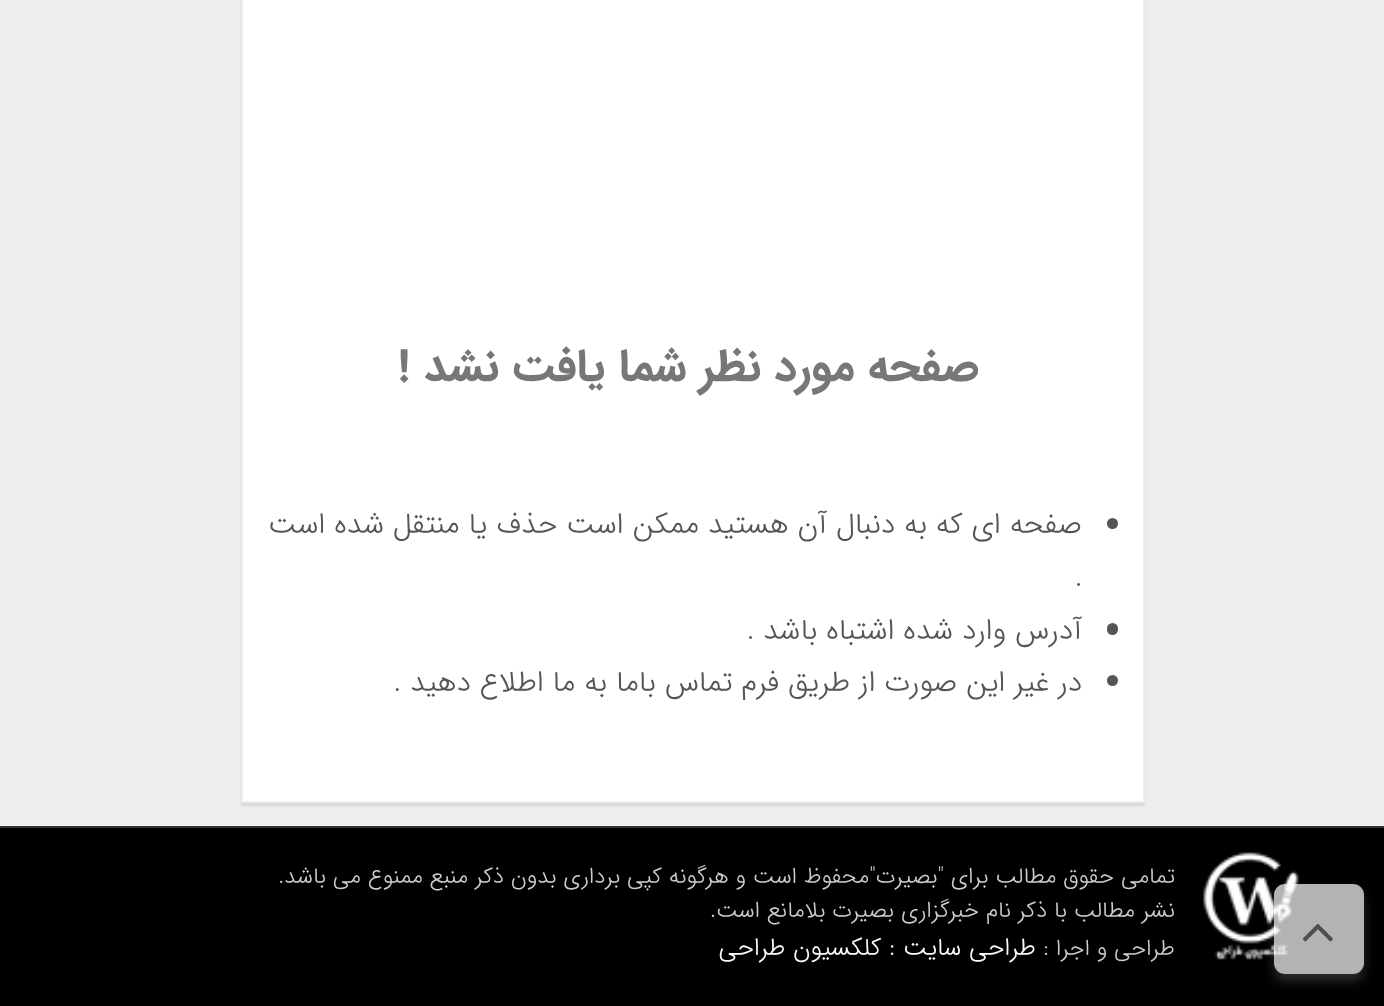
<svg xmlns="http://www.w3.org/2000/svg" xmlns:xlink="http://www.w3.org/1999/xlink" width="1384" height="1006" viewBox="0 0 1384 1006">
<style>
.cls-1{font:bold 45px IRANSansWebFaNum;direction:rtl;fill:#777777}
.cls-2{font:300 29.25px IRANSansWebFaNum;direction:rtl;fill:#555555}
.cls-3{font:300 29.25px IRANSansWebFaNum;fill:#555555}
.cls-4{font:300 22.5px IRANSansWebFaNum;direction:rtl;fill:#cccccc}
.cls-5{font:300 24.75px IRANSansWebFaNum;direction:rtl;fill:#fafafa}
</style>
<defs>
<clipPath id="clip1"><path d="M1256 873H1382V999H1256ZM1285 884H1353C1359 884 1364 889 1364 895V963C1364 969 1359 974 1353 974H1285C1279 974 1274 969 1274 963V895C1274 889 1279 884 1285 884Z" clip-rule="evenodd"/></clipPath>
</defs>
<rect width="100%" height="100%" fill="#eeeeee"/>
<rect fill="#000000" fill-opacity="0.1" filter="blur(1px)" x="241" y="-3" width="904" height="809"/>
<rect fill="#ffffff" stroke="#eeeeee" stroke-width="2" x="242" y="-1" width="902" height="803"/>
<circle fill="#555555" cx="1112.5" cy="523.5" r="5.5"/>
<rect fill="#555555" x="1107" y="623" width="11" height="12" rx="5.5"/>
<circle fill="#555555" cx="1112.5" cy="680.5" r="5.5"/>
<rect fill="#000000" x="0" y="828" width="1384" height="178"/>
<image xlink:href="image1.png" x="1203" y="852" width="96" height="108"/>
<g clip-path="url(#clip1)">
<rect fill="#999999" fill-opacity="0.29" filter="blur(5.5px)" x="1274" y="891" width="90" height="90" rx="11"/>
</g>
<rect fill="#ffffff" fill-opacity="0.7" x="1274" y="884" width="90" height="90" rx="11"/>
<image xlink:href="image0.png" x="1302" y="923" width="31" height="19"/>
<rect fill="#333333" x="0" y="826" width="1384" height="2"/>
<text class="cls-1" x="979" y="380">صفحه مورد نظر شما یافت نشد !</text>
<text class="cls-2" x="1082" y="533">صفحه ای که به دنبال آن هستید ممکن است حذف یا منتقل شده است</text>
<text class="cls-3" x="1075" y="586">.</text>
<text class="cls-2"><tspan x="1082" y="639">آدرس وارد شده اشتباه باشد .</tspan><tspan x="1082" y="691">در غیر این صورت از طریق فرم تماس باما به ما اطلاع دهید .</tspan></text>
<text class="cls-4"><tspan x="1175" y="883">تمامی حقوق مطالب برای "بصیرت"محفوظ است و هرگونه کپی برداری بدون ذکر منبع ممنوع می باشد.</tspan><tspan x="1175" y="917">نشر مطالب با ذکر نام خبرگزاری بصیرت بلامانع است.</tspan><tspan x="1175" y="955">طراحی و اجرا :</tspan></text>
<text class="cls-5" x="1036" y="955">طراحی سایت : کلکسیون طراحی</text>
</svg>
